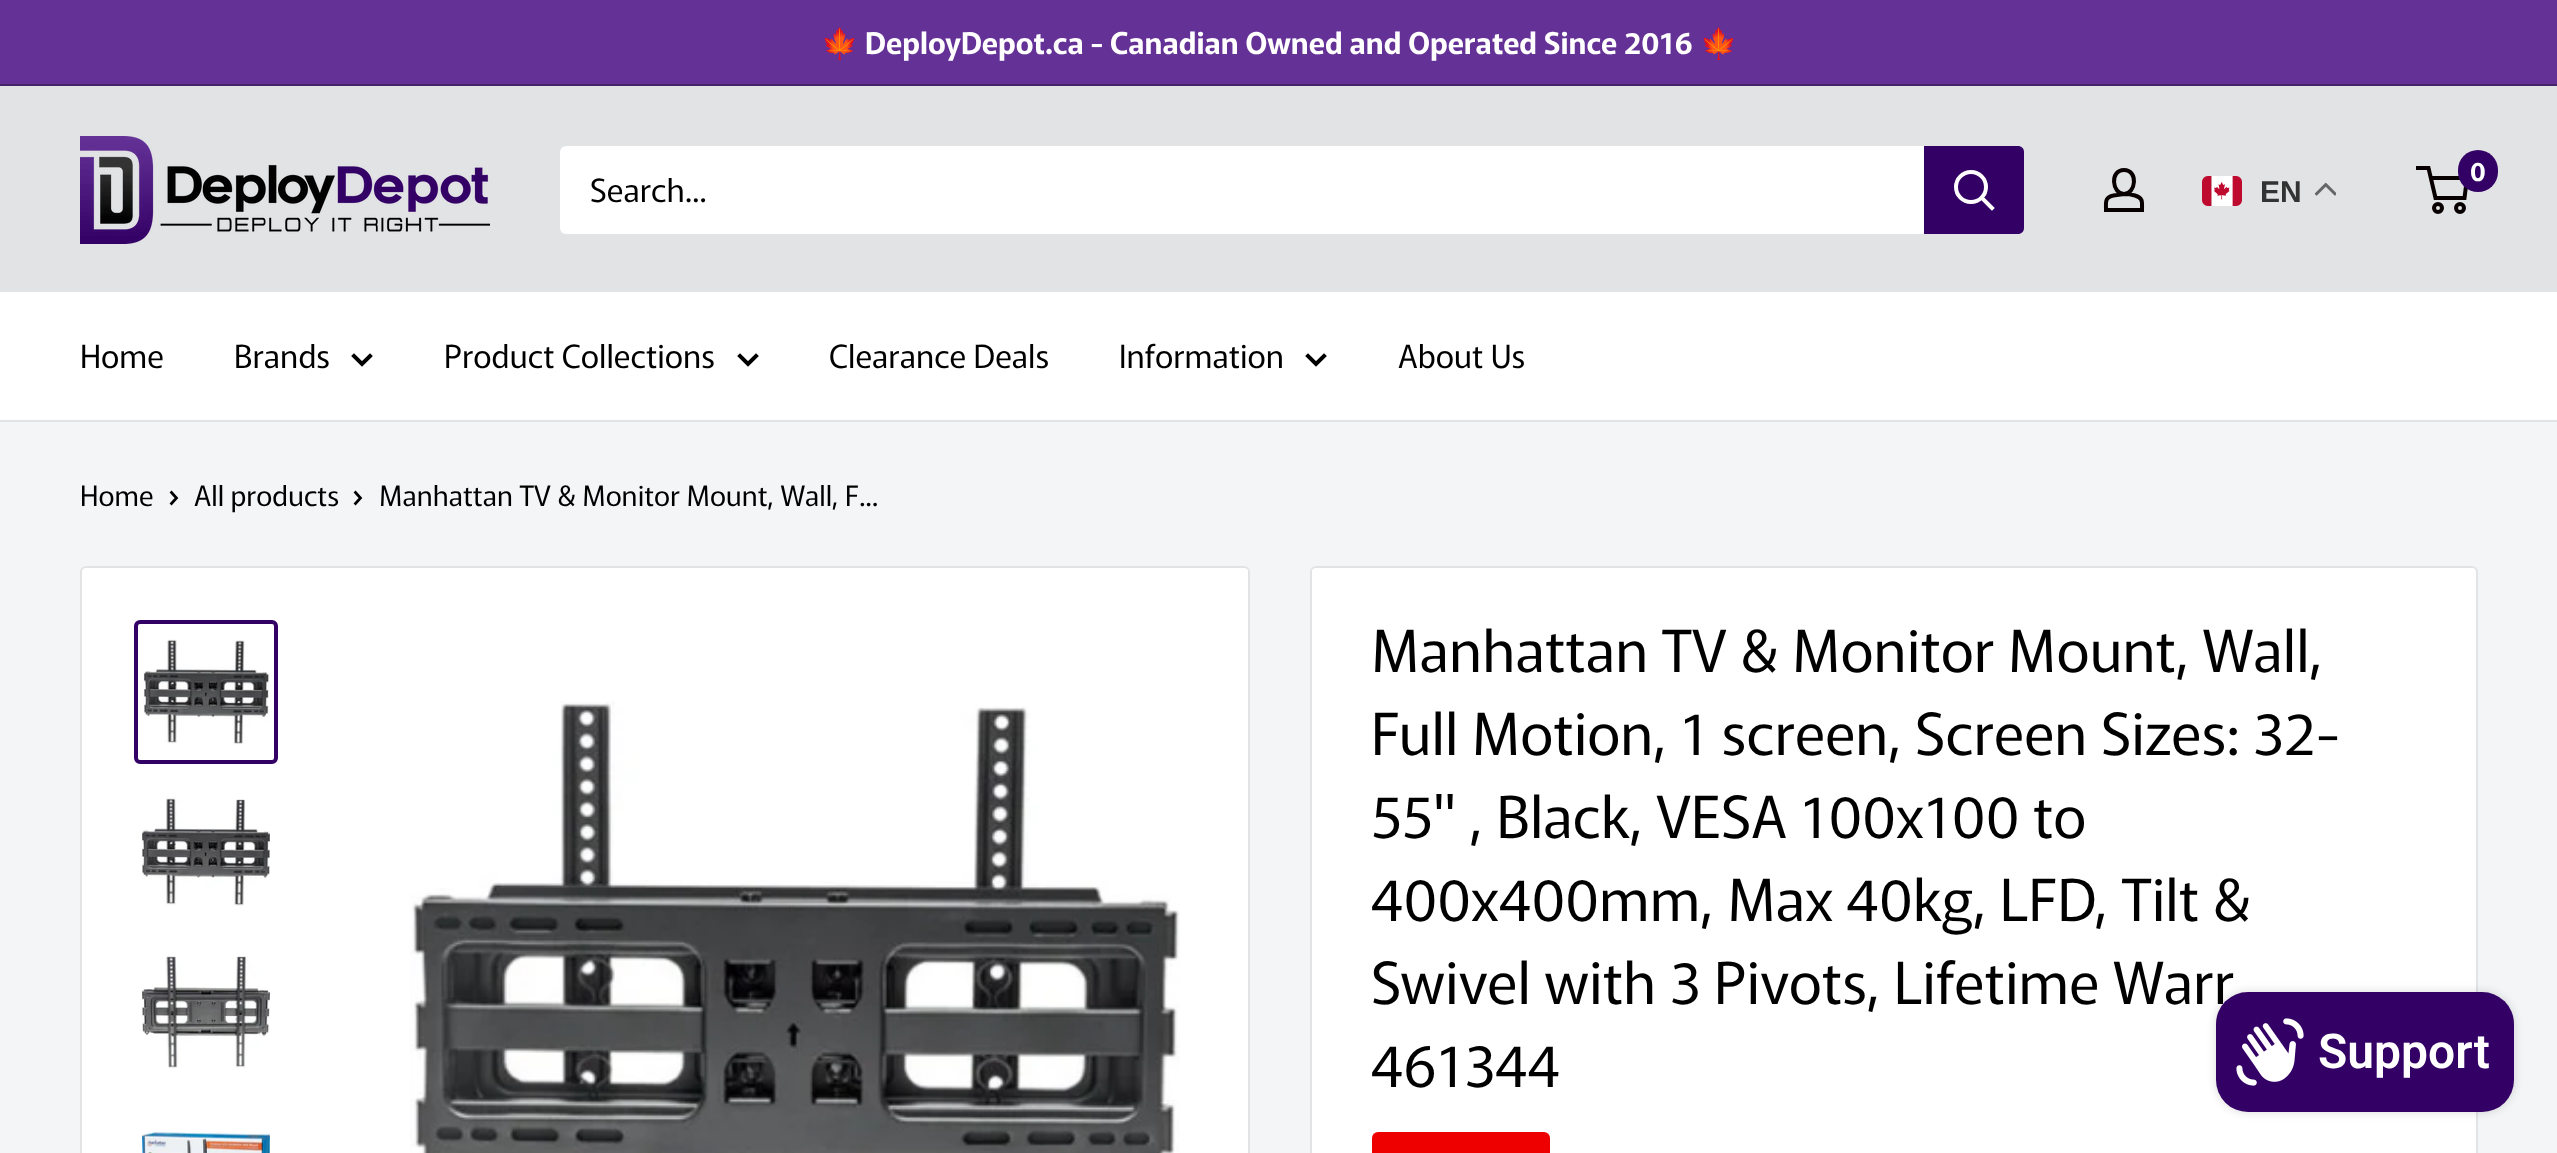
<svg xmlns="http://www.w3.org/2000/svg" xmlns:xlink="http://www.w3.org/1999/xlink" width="2557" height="1153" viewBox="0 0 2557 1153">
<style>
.cls-1{font:bold 30px Noto Color Emoji;fill:#ffffff}
.cls-2{font:600 30px Murecho;fill:#ffffff}
.cls-3{font:32px Murecho;fill:#000000}
.cls-4{font:bold 30px Liberation Sans;fill:#333333}
.cls-5{font:600 26px Murecho;fill:#ffffff}
.cls-6{font:28px Murecho;fill:#000000}
.cls-7{font:58px Murecho;fill:#000000}
.cls-8{font:600 48px Roboto;fill:#ffffff}
</style>
<rect width="100%" height="100%" fill="#f3f5f6"/>
<rect fill="#643196" x="0" y="0" width="2557" height="84"/>
<rect fill="#462269" x="0" y="84" width="2557" height="2"/>
<rect fill="#e1e3e4" x="0" y="86" width="2557" height="206"/>
<image xlink:href="image0.png" x="80" y="136" width="410" height="108"/>
<rect fill="#ffffff" x="560" y="146" width="1464" height="88" rx="6"/>
<path fill="#330065" d="M1924 146H2018C2021.5 146 2024 148.5 2024 152V228C2024 231.5 2021.5 234 2018 234H1924Z"/>
<path fill="none" stroke="#ffffff" stroke-width="4" stroke-linecap="square" d="M1992 208L1982 198"/>
<circle fill="none" stroke="#ffffff" stroke-width="4" cx="1971" cy="187" r="15"/>
<path fill="none" stroke="#080000" stroke-width="4" d="M2124 194C2128 194 2131.5 194.5 2135 195.5C2143.5 198 2142 202.5 2142 210H2106C2106 202 2104.5 197.5 2113.5 195.5ZM2124 194C2112 194 2109.5 170 2124 170C2138.5 170 2136 194 2124 194Z"/>
<image xlink:href="image1.png" x="2202" y="176" width="40" height="30"/>
<image xlink:href="image2.png" x="2314" y="182" width="22" height="14"/>
<circle fill="none" stroke="#080000" stroke-width="4" cx="2438" cy="208" r="4"/>
<circle fill="none" stroke="#080000" stroke-width="4" cx="2460" cy="208" r="4"/>
<path fill="none" stroke="#080000" stroke-width="4" d="M2430.5 178H2467L2464.5 198H2435.5L2428.5 168H2416"/>
<rect fill="#330065" x="2458" y="150" width="40" height="42" rx="20"/>
<rect fill="#ffffff" x="0" y="292" width="2557" height="128"/>
<rect fill="#e1e3e4" x="0" y="420" width="2557" height="2"/>
<path fill="none" stroke="#000000" stroke-width="4" stroke-linecap="square" d="M370 356L362 364L354 356"/>
<path fill="none" stroke="#000000" stroke-width="4" stroke-linecap="square" d="M756 356L748 364L740 356"/>
<path fill="none" stroke="#000000" stroke-width="4" stroke-linecap="square" d="M1324 356L1316 364L1308 356"/>
<path fill="none" stroke="#000000" stroke-width="2.7" stroke-linecap="square" d="M171.5 492.5L176.5 498L171.5 503.5"/>
<path fill="none" stroke="#000000" stroke-width="2.7" stroke-linecap="square" d="M355.5 492.5L360.5 498L355.5 503.5"/>
<rect fill="#ffffff" stroke="#e1e3e4" stroke-width="2" x="81" y="567" width="1168" height="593" rx="5"/>
<rect fill="none" stroke="#330065" stroke-width="4" x="136" y="622" width="140" height="140" rx="4"/>
<image xlink:href="image3.png" x="142" y="639" width="128" height="106"/>
<image xlink:href="image4.png" x="142" y="796" width="128" height="110"/>
<image xlink:href="image5.png" x="142" y="956" width="128" height="113"/>
<image xlink:href="image6.png" x="142" y="1131" width="128" height="22"/>
<image xlink:href="image7.png" x="410" y="701" width="770" height="452"/>
<rect fill="#ffffff" stroke="#e1e3e4" stroke-width="2" x="1311" y="567" width="1166" height="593" rx="5"/>
<rect fill="#ee0000" x="1372" y="1132" width="178" height="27" rx="6"/>
<rect fill="#000000" fill-opacity="0.15" filter="blur(5px)" x="2216" y="992" width="298" height="120" rx="32"/>
<text class="cls-1" x="821" y="54">🍁</text>
<text class="cls-2" x="865" y="54">DeployDepot.ca - Canadian Owned and Operated Since 2016</text>
<text class="cls-1" x="1700" y="54">🍁</text>
<text class="cls-3" x="590" y="202">Search...</text>
<text class="cls-4" x="2260" y="202">EN</text>
<text class="cls-5" x="2470" y="181">0</text>
<text class="cls-3" x="80" y="368">Home</text>
<text class="cls-3" x="234" y="368">Brands</text>
<text class="cls-3" x="444" y="368">Product Collections</text>
<text class="cls-3" x="829" y="368">Clearance Deals</text>
<text class="cls-3" x="1119" y="368">Information</text>
<text class="cls-3" x="1398" y="368">About Us</text>
<text class="cls-6" x="80" y="506">Home</text>
<text class="cls-6" x="194" y="506">All products</text>
<text class="cls-6" x="379" y="506">Manhattan TV &amp; Monitor Mount, Wall, F...</text>
<text class="cls-7"><tspan x="1371" y="672">Manhattan TV &amp; Monitor Mount, Wall,</tspan><tspan x="1371" y="755">Full Motion, 1 screen, Screen Sizes: 32-</tspan><tspan x="1371" y="838">55" , Black, VESA 100x100 to</tspan><tspan x="1371" y="921">400x400mm, Max 40kg, LFD, Tilt &amp;</tspan><tspan x="1371" y="1004">Swivel with 3 Pivots, Lifetime Warr</tspan><tspan x="1371" y="1087">461344</tspan></text>
<rect fill="#330065" x="2216" y="992" width="298" height="120" rx="32"/>
<image xlink:href="image8.png" x="2236" y="1018" width="68" height="68"/>
<text class="cls-8" x="2318" y="1068">Support</text>
</svg>
